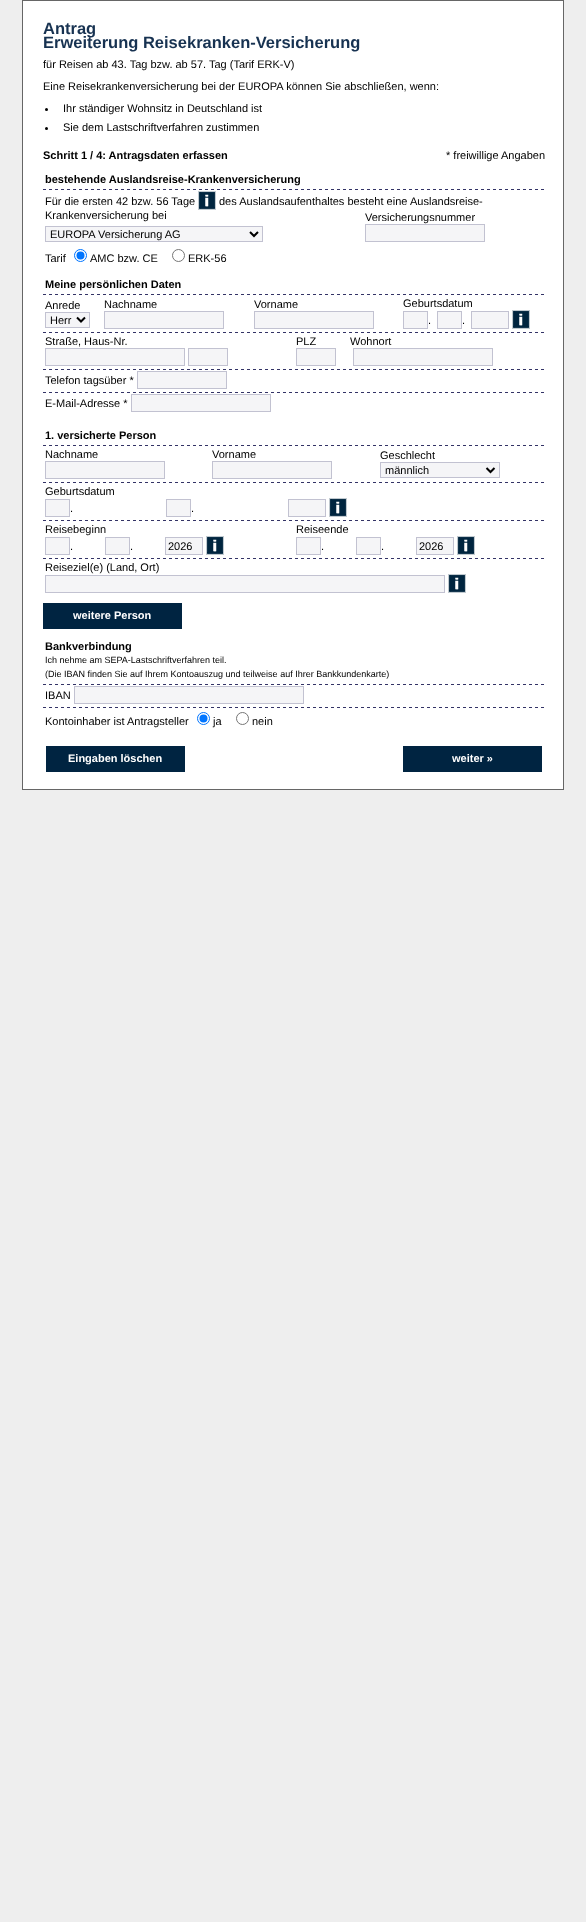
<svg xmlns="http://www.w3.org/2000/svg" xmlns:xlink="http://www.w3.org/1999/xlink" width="586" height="1922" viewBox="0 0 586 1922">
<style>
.cls-1{font:bold 16.5px Liberation Sans;fill:#173251}
.cls-2{font:11px Liberation Sans;fill:#000000}
.cls-3{font:bold 11px Liberation Sans;fill:#000000}
.cls-4{font:bold 11px Liberation Sans;fill:#ffffff}
.cls-5{font:9px Liberation Sans;fill:#000000}
</style>
<rect width="100%" height="100%" fill="#eeeeee"/>
<rect fill="none" stroke="#666666" x="22.5" y="0.5" width="541" height="789"/>
<rect fill="#ffffff" x="23" y="1" width="540" height="788"/>
<circle fill="#000000" cx="46.5" cy="109.5" r="1.5"/>
<circle fill="#000000" cx="46.5" cy="128.5" r="1.5"/>
<image xlink:href="image0.png" x="43" y="189" width="501" height="1"/>
<image xlink:href="image1.png" x="198" y="191" width="18" height="19"/>
<rect fill="#f5f5f7" stroke="#c2c2d1" x="365.5" y="224.5" width="119" height="17"/>
<rect fill="#f5f5f7" stroke="#c2c2d1" x="45.5" y="226.5" width="217" height="15"/>
<path fill="none" stroke="#000000" stroke-width="2" d="M250 232L254 236L258 232"/>
<circle fill="none" stroke="#0075ff" cx="80.5" cy="255.5" r="6"/>
<circle fill="#0075ff" cx="80.5" cy="255.5" r="4"/>
<circle fill="none" stroke="#767676" cx="178.5" cy="255.5" r="6"/>
<image xlink:href="image0.png" x="43" y="294" width="501" height="1"/>
<rect fill="#f5f5f7" stroke="#c2c2d1" x="45.5" y="312.5" width="44" height="15"/>
<path fill="none" stroke="#000000" stroke-width="2" d="M77 317.5L81 321.5L85 317.5"/>
<rect fill="#f5f5f7" stroke="#c2c2d1" x="104.5" y="311.5" width="119" height="17"/>
<rect fill="#f5f5f7" stroke="#c2c2d1" x="254.5" y="311.5" width="119" height="17"/>
<rect fill="#f5f5f7" stroke="#c2c2d1" x="403.5" y="311.5" width="24" height="17"/>
<rect fill="#f5f5f7" stroke="#c2c2d1" x="437.5" y="311.5" width="24" height="17"/>
<rect fill="#f5f5f7" stroke="#c2c2d1" x="471.5" y="311.5" width="37" height="17"/>
<image xlink:href="image1.png" x="512" y="310" width="18" height="19"/>
<image xlink:href="image0.png" x="43" y="332" width="501" height="1"/>
<rect fill="#f5f5f7" stroke="#c2c2d1" x="45.5" y="348.5" width="139" height="17"/>
<rect fill="#f5f5f7" stroke="#c2c2d1" x="188.5" y="348.5" width="39" height="17"/>
<rect fill="#f5f5f7" stroke="#c2c2d1" x="296.5" y="348.5" width="39" height="17"/>
<rect fill="#f5f5f7" stroke="#c2c2d1" x="353.5" y="348.5" width="139" height="17"/>
<image xlink:href="image0.png" x="43" y="369" width="501" height="1"/>
<rect fill="#f5f5f7" stroke="#c2c2d1" x="137.5" y="371.5" width="89" height="17"/>
<image xlink:href="image0.png" x="43" y="392" width="501" height="1"/>
<rect fill="#f5f5f7" stroke="#c2c2d1" x="131.5" y="394.5" width="139" height="17"/>
<image xlink:href="image0.png" x="43" y="445" width="501" height="1"/>
<rect fill="#f5f5f7" stroke="#c2c2d1" x="45.5" y="461.5" width="119" height="17"/>
<rect fill="#f5f5f7" stroke="#c2c2d1" x="212.5" y="461.5" width="119" height="17"/>
<rect fill="#f5f5f7" stroke="#c2c2d1" x="380.5" y="462.5" width="119" height="15"/>
<path fill="none" stroke="#000000" stroke-width="2" d="M486.5 468L490.5 472L494.5 468"/>
<image xlink:href="image0.png" x="43" y="482" width="501" height="1"/>
<rect fill="#f5f5f7" stroke="#c2c2d1" x="45.5" y="499.5" width="24" height="17"/>
<rect fill="#f5f5f7" stroke="#c2c2d1" x="166.5" y="499.5" width="24" height="17"/>
<rect fill="#f5f5f7" stroke="#c2c2d1" x="288.5" y="499.5" width="37" height="17"/>
<image xlink:href="image1.png" x="329" y="498" width="18" height="19"/>
<image xlink:href="image0.png" x="43" y="520" width="501" height="1"/>
<rect fill="#f5f5f7" stroke="#c2c2d1" x="45.5" y="537.5" width="24" height="17"/>
<rect fill="#f5f5f7" stroke="#c2c2d1" x="105.5" y="537.5" width="24" height="17"/>
<rect fill="#f5f5f7" stroke="#c2c2d1" x="165.5" y="537.5" width="37" height="17"/>
<image xlink:href="image1.png" x="206" y="536" width="18" height="19"/>
<rect fill="#f5f5f7" stroke="#c2c2d1" x="296.5" y="537.5" width="24" height="17"/>
<rect fill="#f5f5f7" stroke="#c2c2d1" x="356.5" y="537.5" width="24" height="17"/>
<rect fill="#f5f5f7" stroke="#c2c2d1" x="416.5" y="537.5" width="37" height="17"/>
<image xlink:href="image1.png" x="457" y="536" width="18" height="19"/>
<image xlink:href="image0.png" x="43" y="558" width="501" height="1"/>
<rect fill="#f5f5f7" stroke="#c2c2d1" x="45.5" y="575.5" width="399" height="17"/>
<image xlink:href="image1.png" x="448" y="574" width="18" height="19"/>
<rect fill="#002441" x="43" y="603" width="139" height="26"/>
<image xlink:href="image0.png" x="43" y="684" width="501" height="1"/>
<rect fill="#f5f5f7" stroke="#c2c2d1" x="74.5" y="686.5" width="229" height="17"/>
<image xlink:href="image0.png" x="43" y="707" width="501" height="1"/>
<circle fill="none" stroke="#0075ff" cx="203.5" cy="718.5" r="6"/>
<circle fill="#0075ff" cx="203.5" cy="718.5" r="4"/>
<circle fill="none" stroke="#767676" cx="242.5" cy="718.5" r="6"/>
<rect fill="#002441" x="46" y="746" width="139" height="26"/>
<rect fill="#002441" x="403" y="746" width="139" height="26"/>
<text class="cls-1"><tspan x="43" y="34">Antrag</tspan><tspan x="43" y="48">Erweiterung Reisekranken-Versicherung</tspan></text>
<text class="cls-2" x="43" y="68">für Reisen ab 43. Tag bzw. ab 57. Tag (Tarif ERK-V)</text>
<text class="cls-2" x="43" y="90">Eine Reisekrankenversicherung bei der EUROPA können Sie abschließen, wenn:</text>
<text class="cls-2"><tspan x="63" y="112">Ihr ständiger Wohnsitz in Deutschland ist</tspan><tspan x="63" y="131">Sie dem Lastschriftverfahren zustimmen</tspan></text>
<text class="cls-3" x="43" y="159">Schritt 1 / 4: Antragsdaten erfassen</text>
<text class="cls-2" x="446" y="159">* freiwillige Angaben</text>
<text class="cls-3" x="45" y="183">bestehende Auslandsreise-Krankenversicherung</text>
<text class="cls-2" x="45" y="205">Für die ersten 42 bzw. 56 Tage</text>
<text class="cls-2" x="219" y="205">des Auslandsaufenthaltes besteht eine</text>
<text class="cls-2" x="410" y="205">Auslandsreise-</text>
<text class="cls-2" x="45" y="219">Krankenversicherung bei</text>
<text class="cls-2" x="365" y="221">Versicherungsnummer</text>
<text class="cls-2" x="50" y="238">EUROPA Versicherung AG</text>
<text class="cls-2" x="45" y="262">Tarif</text>
<text class="cls-2" x="90" y="262">AMC bzw. CE</text>
<text class="cls-2" x="188" y="262">ERK-56</text>
<text class="cls-3" x="45" y="288">Meine persönlichen Daten</text>
<text class="cls-2" x="45" y="309">Anrede</text>
<text class="cls-2" x="50" y="324">Herr</text>
<text class="cls-2" x="104" y="308">Nachname</text>
<text class="cls-2" x="254" y="308">Vorname</text>
<text class="cls-2" x="403" y="307">Geburtsdatum</text>
<text class="cls-2" x="428" y="324">.</text>
<text class="cls-2" x="462" y="324">.</text>
<text class="cls-2" x="45" y="345">Straße, Haus-Nr.</text>
<text class="cls-2" x="296" y="345">PLZ</text>
<text class="cls-2" x="350" y="345">Wohnort</text>
<text class="cls-2" x="45" y="384">Telefon tagsüber *</text>
<text class="cls-2" x="45" y="407">E-Mail-Adresse *</text>
<text class="cls-3" x="45" y="439">1. versicherte Person</text>
<text class="cls-2" x="45" y="458">Nachname</text>
<text class="cls-2" x="212" y="458">Vorname</text>
<text class="cls-2" x="380" y="459">Geschlecht</text>
<text class="cls-2" x="385" y="474">männlich</text>
<text class="cls-2" x="45" y="495">Geburtsdatum</text>
<text class="cls-2" x="70" y="512">.</text>
<text class="cls-2" x="191" y="512">.</text>
<text class="cls-2" x="45" y="533">Reisebeginn</text>
<text class="cls-2" x="70" y="550">.</text>
<text class="cls-2" x="130" y="550">.</text>
<text class="cls-2" x="168" y="550">2026</text>
<text class="cls-2" x="296" y="533">Reiseende</text>
<text class="cls-2" x="321" y="550">.</text>
<text class="cls-2" x="381" y="550">.</text>
<text class="cls-2" x="419" y="550">2026</text>
<text class="cls-2" x="45" y="571">Reiseziel(e) (Land, Ort)</text>
<text class="cls-4" x="73" y="619">weitere Person</text>
<text class="cls-3" x="45" y="650">Bankverbindung</text>
<text class="cls-5"><tspan x="45" y="663">Ich nehme am SEPA-Lastschriftverfahren teil.</tspan><tspan x="45" y="677">(Die IBAN finden Sie auf Ihrem Kontoauszug und teilweise auf Ihrer Bankkundenkarte)</tspan></text>
<text class="cls-2" x="45" y="699">IBAN</text>
<text class="cls-2" x="45" y="725">Kontoinhaber ist Antragsteller</text>
<text class="cls-2" x="213" y="725">ja</text>
<text class="cls-2" x="252" y="725">nein</text>
<text class="cls-4" x="68" y="762">Eingaben löschen</text>
<text class="cls-4" x="452" y="762">weiter »</text>
</svg>
